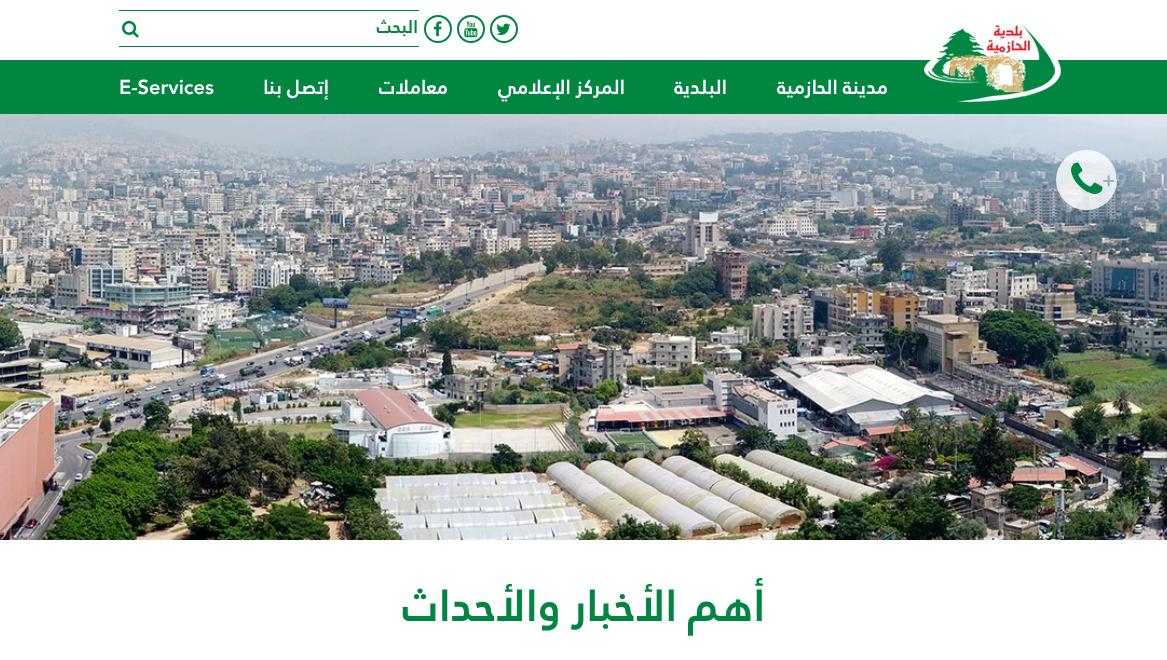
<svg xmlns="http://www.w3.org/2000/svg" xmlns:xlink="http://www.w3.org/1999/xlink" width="1167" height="660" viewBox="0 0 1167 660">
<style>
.cls-1{font:bold 18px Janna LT;direction:rtl;fill:#008641}
.cls-2{font:bold 20px Janna LT;direction:rtl;fill:#ffffff}
.cls-3{font:bold 20px Janna LT;fill:#ffffff}
.cls-4{font:bold 20px Janna LT;fill:#9daebd}
.cls-5{font:bold 44px Janna LT;direction:rtl;fill:#008641}
</style>
<rect width="100%" height="100%" fill="#ffffff"/>
<rect fill="#008641" x="0" y="60" width="1167" height="54"/>
<image xlink:href="image0.png" x="924" y="22" width="137" height="80"/>
<circle fill="none" stroke="#008641" stroke-width="2" cx="504" cy="29" r="13"/>
<image xlink:href="image1.png" x="496" y="23" width="15" height="12"/>
<circle fill="none" stroke="#008641" stroke-width="2" cx="471" cy="29" r="13"/>
<image xlink:href="image2.png" x="464" y="21" width="14" height="17"/>
<circle fill="none" stroke="#008641" stroke-width="2" cx="438" cy="29" r="13"/>
<image xlink:href="image3.png" x="433" y="21" width="9" height="16"/>
<rect fill="#008641" x="119" y="10" width="300" height="1"/>
<rect fill="#008641" x="119" y="46" width="300" height="1"/>
<image xlink:href="image4.png" x="122" y="20" width="17" height="18"/>
<image xlink:href="image5.png" x="0" y="114" width="1167" height="426"/>
<rect fill="#ffffff" fill-opacity="0.8" x="1056" y="150" width="61" height="60" rx="30"/>
<image xlink:href="image6.png" x="1071" y="162" width="32" height="32"/>
<text class="cls-1" x="418" y="33">البحث</text>
<text class="cls-2" x="888" y="94">مدينة الحازمية</text>
<text class="cls-2" x="727" y="94">البلدية</text>
<text class="cls-2" x="625" y="94">المركز الإعلامي</text>
<text class="cls-2" x="448" y="94">معاملات</text>
<text class="cls-2" x="329" y="94">إتصل بنا</text>
<text class="cls-3" x="119" y="94">E-Services</text>
<text class="cls-4" x="1102" y="187">+9</text>
<text class="cls-5" x="765" y="621">أهم الأخبار والأحداث</text>
</svg>
